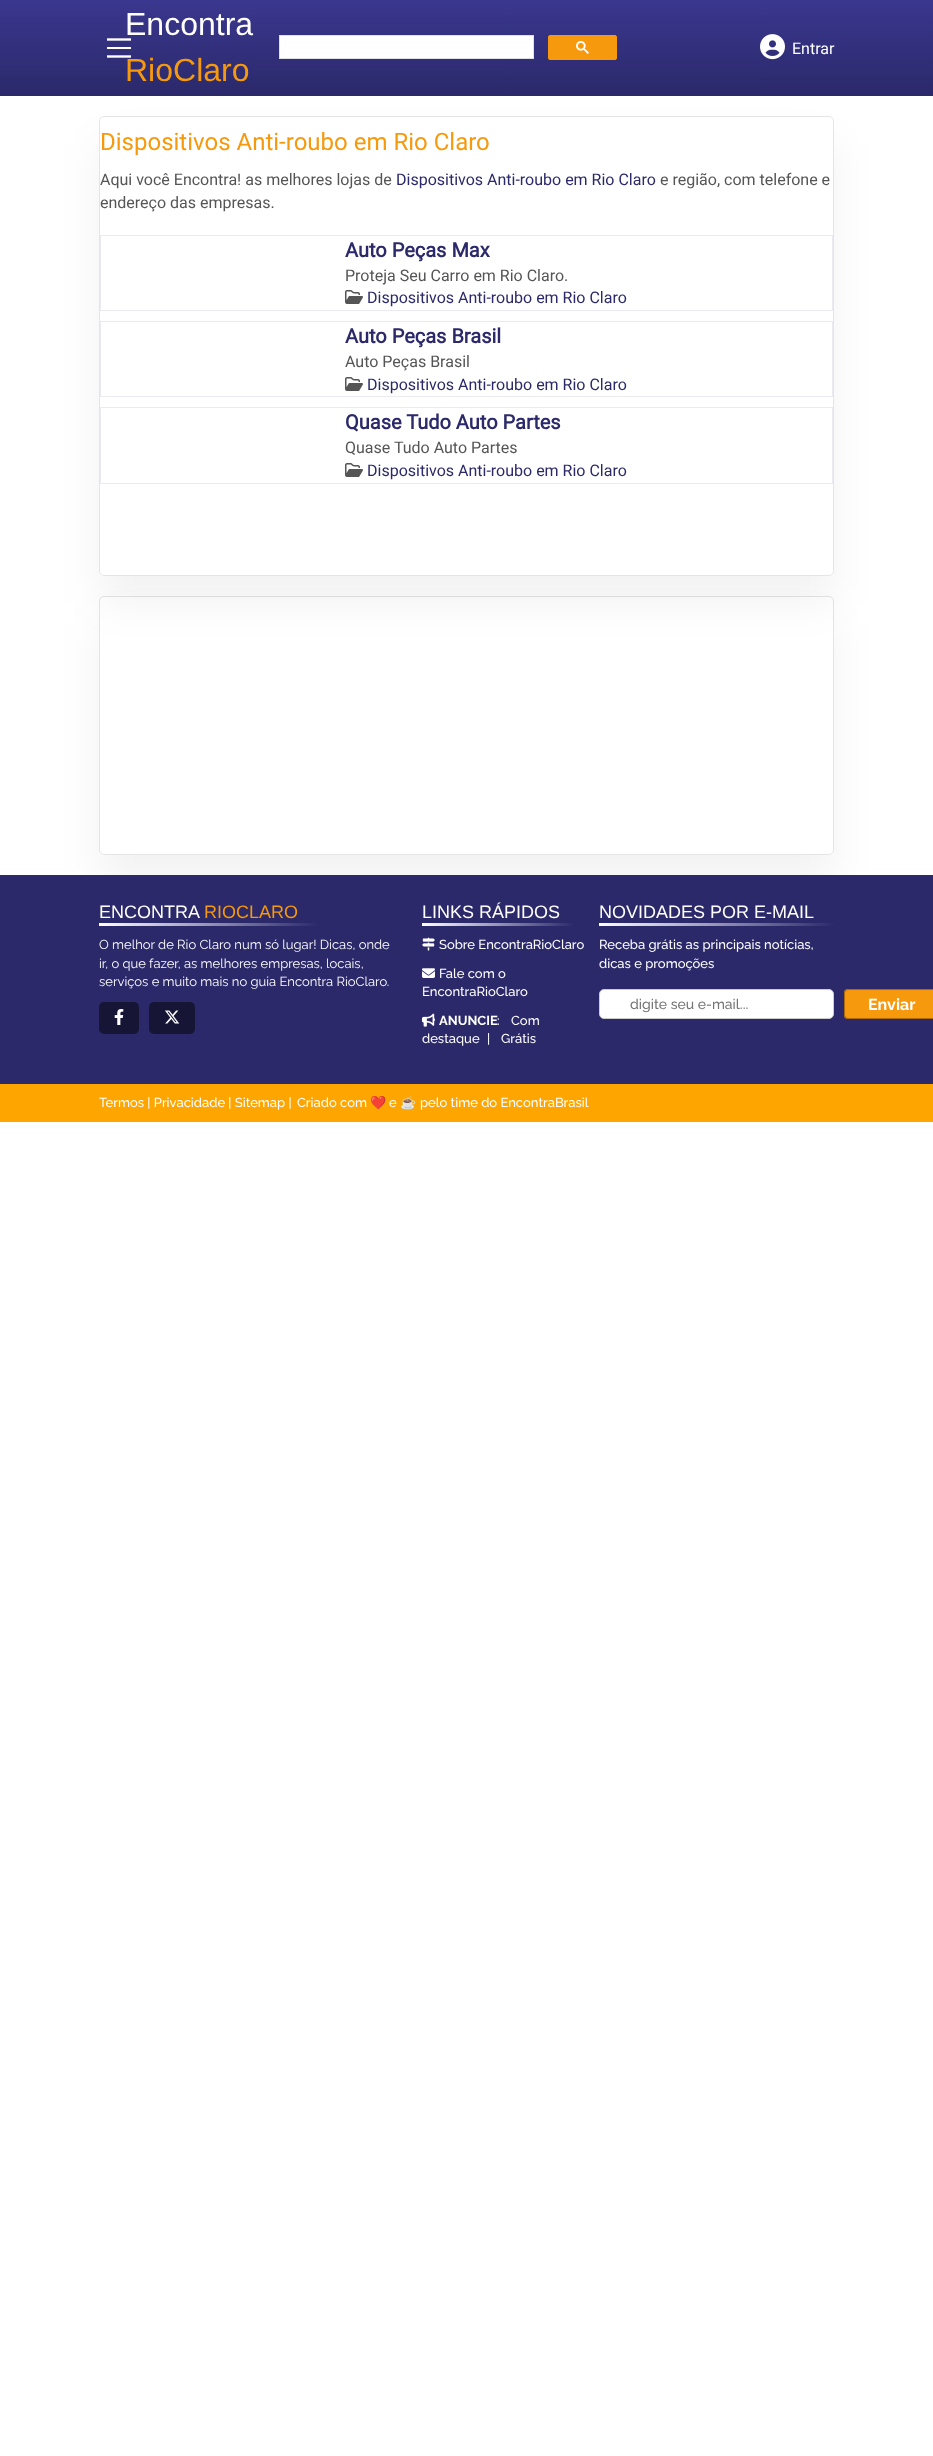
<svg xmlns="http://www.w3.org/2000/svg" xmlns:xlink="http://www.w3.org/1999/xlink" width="933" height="2456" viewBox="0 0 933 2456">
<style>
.cls-1{font:32px Liberation Sans;fill:#fefefe}
.cls-2{font:32px Liberation Sans;fill:#f6990d}
.cls-3{font:16px Roboto;fill:#fefefe}
.cls-4{font:24px Roboto;fill:#f6990d}
.cls-5{font:16px Roboto;fill:#555555}
.cls-6{font:16px Roboto;fill:#2b296a}
.cls-7{font:bold 20px Roboto;fill:#2b296a}
.cls-8{font:18px Liberation Sans;fill:#fefefe}
.cls-9{font:18px Liberation Sans;fill:#f6990d}
.cls-10{font:13px Raleway;fill:#fefefe}
.cls-11{font:500 13px Raleway;fill:#fefefe}
.cls-12{font:bold 13px Raleway;fill:#fefefe}
.cls-13{font:500 14px Raleway;fill:#757575}
.cls-14{font:bold 16px Raleway;fill:#fefefe}
.cls-15{font:13px Noto Color Emoji;fill:#fefefe}
</style>
<defs>
<clipPath id="clip1"><path d="M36 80H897V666H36ZM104 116H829C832 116 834 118 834 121V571C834 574 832 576 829 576H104C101 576 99 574 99 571V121C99 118 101 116 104 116Z" clip-rule="evenodd"/></clipPath>
<linearGradient id="g1" gradientUnits="userSpaceOnUse" x1="467" y1="0" x2="467" y2="96"><stop offset="0" stop-color="#3a378f"/><stop offset="1" stop-color="#2b296a"/></linearGradient>
<clipPath id="clip2"><path d="M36 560H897V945H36ZM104 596H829C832 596 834 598 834 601V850C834 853 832 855 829 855H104C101 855 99 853 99 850V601C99 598 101 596 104 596Z" clip-rule="evenodd"/></clipPath>
<linearGradient id="g2" gradientUnits="userSpaceOnUse" x1="99" y1="925" x2="318" y2="925"><stop offset="0" stop-color="#ffffff"/><stop offset="1" stop-color="#2b296a"/></linearGradient>
<linearGradient id="g3" gradientUnits="userSpaceOnUse" x1="422" y1="925" x2="574" y2="925"><stop offset="0" stop-color="#ffffff"/><stop offset="1" stop-color="#2b296a"/></linearGradient>
<linearGradient id="g4" gradientUnits="userSpaceOnUse" x1="599" y1="925" x2="835" y2="925"><stop offset="0" stop-color="#ffffff"/><stop offset="1" stop-color="#2b296a"/></linearGradient>
</defs>
<rect width="100%" height="100%" fill="#ffffff"/>
<g clip-path="url(#clip1)">
<rect fill="#000000" fill-opacity="0.05" filter="blur(20.5px)" x="99" y="143" width="735" height="460" rx="5"/>
</g>
<rect fill="url(#g1)" x="0" y="0" width="933" height="96"/>
<path fill="none" stroke="#fefefe" stroke-width="2.4" d="M107 39.5H131"/>
<rect fill="#fefefe" x="107" y="47" width="24" height="2"/>
<path fill="none" stroke="#fefefe" stroke-width="2.4" d="M107 56.5H131"/>
<rect fill="#ffffff" stroke="#dfe1e5" x="279.5" y="35.5" width="254" height="23"/>
<rect fill="#f6990d" stroke="#f6990d" x="548.5" y="35.5" width="68" height="24" rx="1.5"/>
<image xlink:href="image0.png" x="576" y="41" width="13" height="13"/>
<image xlink:href="image1.png" x="760" y="34" width="25" height="26"/>
<rect fill="none" stroke="#000000" stroke-opacity="0.1" x="99.5" y="116.5" width="734" height="459" rx="4.5"/>
<rect fill="none" stroke="#eaeaf0" x="100.5" y="235.5" width="732" height="75"/>
<image xlink:href="image2.png" x="345" y="290" width="18" height="14"/>
<rect fill="none" stroke="#eaeaf0" x="100.5" y="321.5" width="732" height="75"/>
<image xlink:href="image2.png" x="345" y="377" width="18" height="14"/>
<rect fill="none" stroke="#eaeaf0" x="100.5" y="407.5" width="732" height="76"/>
<image xlink:href="image2.png" x="345" y="463" width="18" height="14"/>
<g clip-path="url(#clip2)">
<rect fill="#000000" fill-opacity="0.05" filter="blur(20.5px)" x="99" y="623" width="735" height="259" rx="5"/>
</g>
<rect fill="none" stroke="#000000" stroke-opacity="0.1" x="99.5" y="596.5" width="734" height="258" rx="4.5"/>
<rect fill="#2b296a" x="0" y="875" width="933" height="209"/>
<rect fill="url(#g2)" x="99" y="923" width="219" height="3"/>
<rect fill="#161535" x="99" y="1002" width="40" height="32" rx="5"/>
<image xlink:href="image3.png" x="114" y="1009" width="10" height="16"/>
<rect fill="#161535" x="149" y="1002" width="46" height="32" rx="5"/>
<image xlink:href="image4.png" x="165" y="1010" width="15" height="14"/>
<rect fill="url(#g3)" x="422" y="923" width="152" height="3"/>
<image xlink:href="image5.png" x="422" y="937" width="13" height="14"/>
<image xlink:href="image6.png" x="422" y="968" width="13" height="10"/>
<image xlink:href="image7.png" x="422" y="1013" width="13" height="14"/>
<rect fill="url(#g4)" x="599" y="923" width="236" height="3"/>
<rect fill="#ffffff" stroke="#cccccc" x="599.5" y="989.5" width="234" height="29" rx="4.5"/>
<rect fill="#f6990d" x="844" y="989" width="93" height="30" rx="4"/>
<rect fill="none" stroke="#000000" stroke-opacity="0.3" x="844.5" y="989.5" width="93" height="29" rx="3.5"/>
<rect fill="#ffa500" x="0" y="1084" width="933" height="38"/>
<text class="cls-1" x="125" y="35">Encontra</text>
<text class="cls-2" x="125" y="81">RioClaro</text>
<text class="cls-3" x="792" y="54">Entrar</text>
<text class="cls-4" x="100" y="150">Dispositivos Anti-roubo em Rio Claro</text>
<text class="cls-5" x="100" y="185">Aqui você Encontra! as melhores lojas de</text>
<text class="cls-6" x="396" y="185">Dispositivos Anti-roubo em Rio Claro</text>
<text class="cls-5" x="660" y="185">e região, com telefone e</text>
<text class="cls-5" x="100" y="208">endereço das empresas.</text>
<text class="cls-7" x="345" y="257">Auto Peças Max</text>
<text class="cls-5" x="345" y="281">Proteja Seu Carro em Rio Claro.</text>
<text class="cls-6" x="367" y="303">Dispositivos Anti-roubo em Rio Claro</text>
<text class="cls-7" x="345" y="343">Auto Peças Brasil</text>
<text class="cls-5" x="345" y="367">Auto Peças Brasil</text>
<text class="cls-6" x="367" y="390">Dispositivos Anti-roubo em Rio Claro</text>
<text class="cls-7" x="345" y="429">Quase Tudo Auto Partes</text>
<text class="cls-5" x="345" y="453">Quase Tudo Auto Partes</text>
<text class="cls-6" x="367" y="476">Dispositivos Anti-roubo em Rio Claro</text>
<text class="cls-8" x="99" y="918">ENCONTRA</text>
<text class="cls-9" x="204" y="918">RIOCLARO</text>
<text class="cls-10"><tspan x="99" y="949">O melhor de Rio Claro num só lugar! Dicas, onde</tspan><tspan x="99" y="968">ir, o que fazer, as melhores empresas, locais,</tspan><tspan x="99" y="986">serviços e muito mais no guia Encontra RioClaro.</tspan></text>
<text class="cls-8" x="422" y="918">LINKS RÁPIDOS</text>
<text class="cls-11" x="439" y="949">Sobre EncontraRioClaro</text>
<text class="cls-11" x="439" y="978">Fale com o</text>
<text class="cls-11" x="422" y="996">EncontraRioClaro</text>
<text class="cls-12" x="439" y="1025">ANUNCIE</text>
<text class="cls-11" x="497" y="1025">:</text>
<text class="cls-11" x="511" y="1025">Com</text>
<text class="cls-11" x="422" y="1043">destaque</text>
<text class="cls-11" x="487" y="1043">|</text>
<text class="cls-11" x="501" y="1043">Grátis</text>
<text class="cls-8" x="599" y="918">NOVIDADES POR E-MAIL</text>
<text class="cls-11"><tspan x="599" y="949">Receba grátis as principais notícias,</tspan><tspan x="599" y="968">dicas e promoções</tspan></text>
<text class="cls-13" x="630" y="1009">digite seu e-mail...</text>
<text class="cls-14" x="868" y="1010">Enviar</text>
<text class="cls-11" x="99" y="1107">Termos | Privacidade | Sitemap |</text>
<text class="cls-11" x="297" y="1107">Criado com</text>
<text class="cls-15" x="370" y="1107">❤️</text>
<text class="cls-11" x="389" y="1107">e</text>
<text class="cls-15" x="400" y="1107">☕</text>
<text class="cls-11" x="420" y="1107">pelo time do EncontraBrasil</text>
</svg>
